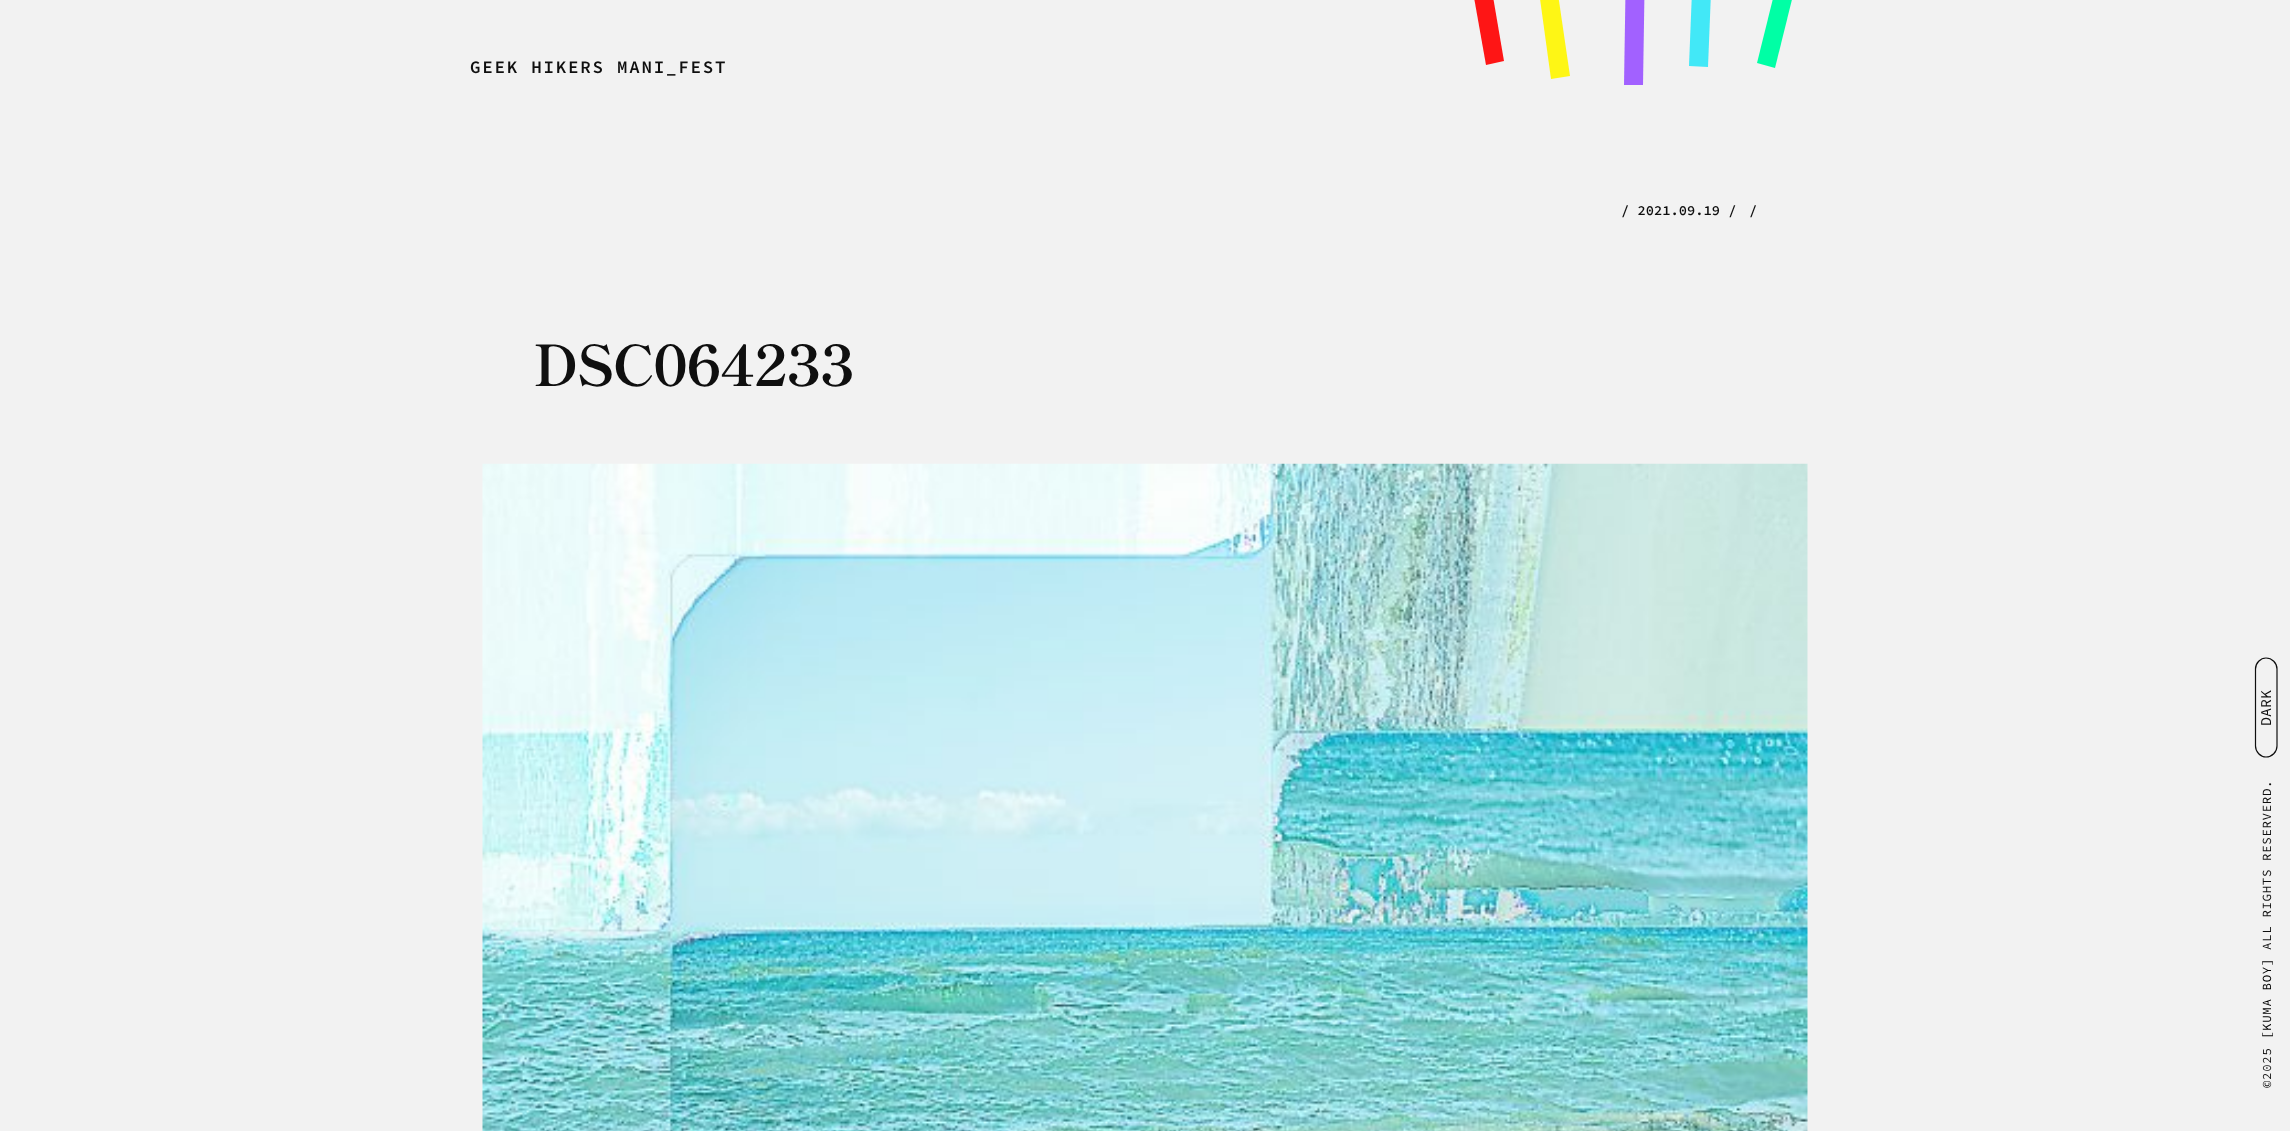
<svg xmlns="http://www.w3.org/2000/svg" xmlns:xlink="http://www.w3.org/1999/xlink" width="2290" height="1131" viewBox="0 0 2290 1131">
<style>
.cls-1{font:600 17.5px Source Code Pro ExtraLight;letter-spacing:1.75px;fill:#0f0f0f}
.cls-2{font:600 13.75px Source Code Pro ExtraLight;fill:#0f0f0f}
.cls-3{font:bold 56.25px Shippori Mincho;letter-spacing:-1.25px;fill:#0f0f0f}
.cls-4{font:15px Source Code Pro ExtraLight;fill:#0f0f0f}
.cls-5{font:12.5px Source Code Pro ExtraLight;letter-spacing:0.6px;fill:#0f0f0f}
.cls-6{font:12.5px Source Code Pro ExtraLight;letter-spacing:0.6px;fill:#000000}
</style>
<rect width="100%" height="100%" fill="#f2f2f2"/>
<path fill="#fe1515" d="M1464-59L1483-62L1504 61L1486 65Z"/>
<path fill="#fef615" d="M1534-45L1552-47L1570 76L1551 79Z"/>
<path fill="#a261ff" d="M1626-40H1645L1643 85H1624Z"/>
<path fill="#42e8f7" d="M1694-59L1713-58L1708 67L1689 66Z"/>
<path fill="#00ffa5" d="M1787-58L1805-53L1775 68L1757 63Z"/>
<image xlink:href="image0.png" x="482" y="463" width="1326" height="668"/>
<path fill="none" stroke="#0f0f0f" stroke-width="1.2" d="M2255.5 746V669C2255.5 663 2260.5 658 2266 658C2272 658 2277 663 2277 669V746C2277 752 2272 757 2266 757C2260.5 757 2255.5 752 2255.5 746Z"/>
<text class="cls-1" x="470" y="73">GEEK HIKERS MANI_FEST</text>
<text class="cls-2" x="1621" y="215">/ 2021.09.19 /</text>
<text class="cls-2" x="1749" y="215">/</text>
<text class="cls-3" x="533" y="386">DSC064233</text>
<text class="cls-4" x="2271" y="726" transform="rotate(-90 2271 726)">DARK</text>
<text class="cls-5" x="2271" y="950" transform="rotate(-90 2271 950)">ALL RIGHTS RESERVERD.</text>
<text class="cls-6" x="2271" y="1039" transform="rotate(-90 2271 1039)">[KUMA BOY]</text>
<text class="cls-5" x="2271" y="1088" transform="rotate(-90 2271 1088)">©2025</text>
</svg>
